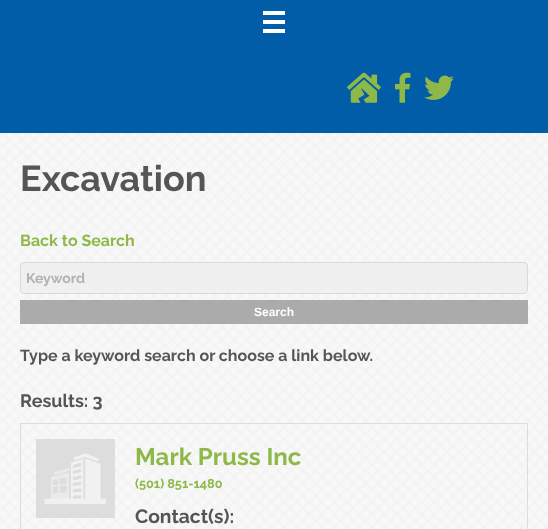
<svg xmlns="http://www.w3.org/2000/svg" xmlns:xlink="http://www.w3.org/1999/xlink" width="548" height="529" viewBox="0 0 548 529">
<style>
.cls-1{font:bold 36px Raleway;fill:#555555}
.cls-2{font:bold 16px Raleway;fill:#8eb848}
.cls-3{font:bold 14px Raleway;fill:#b2b2b2}
.cls-4{font:bold 12px Liberation Sans;fill:#ffffff}
.cls-5{font:bold 16px Raleway;fill:#555555}
.cls-6{font:bold 18px Raleway;fill:#555555}
.cls-7{font:bold 24px Raleway;fill:#8eb848}
.cls-8{font:bold 12.75px Raleway;fill:#8eb848}
.cls-9{font:bold 19.25px Raleway;fill:#555555}
</style>
<rect width="100%" height="100%" fill="#015da7"/>
<rect fill="#ffffff" x="263" y="11" width="22" height="4"/>
<rect fill="#ffffff" x="263" y="20" width="22" height="4"/>
<rect fill="#ffffff" x="263" y="29" width="22" height="4"/>
<image xlink:href="image0.png" x="347" y="72" width="34" height="31"/>
<image xlink:href="image1.png" x="395" y="72" width="16" height="31"/>
<image xlink:href="image2.png" x="424" y="75" width="30" height="25"/>
<rect fill="#f3f3f3" x="0" y="133" width="548" height="396"/>
<image xlink:href="image3.png" x="0" y="133" width="548" height="396"/>
<rect fill="#f0f0f0" stroke="#dadada" x="20.5" y="262.5" width="507" height="31" rx="3.5"/>
<rect fill="#ababab" x="20" y="300" width="508" height="24"/>
<rect fill="none" stroke="#dddddd" x="20.5" y="423.5" width="507" height="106"/>
<rect fill="#dddddd" x="36" y="439" width="79" height="79"/>
<image xlink:href="image4.png" x="44" y="453" width="62" height="51"/>
<text class="cls-1" x="20" y="191">Excavation</text>
<text class="cls-2" x="20" y="246">Back to Search</text>
<text class="cls-3" x="26" y="283">Keyword</text>
<text class="cls-4" x="254" y="316">Search</text>
<text class="cls-5" x="20" y="361">Type a keyword search or choose a link below.</text>
<text class="cls-6" x="20" y="407">Results: 3</text>
<text class="cls-7" x="135" y="465">Mark Pruss Inc</text>
<text class="cls-8" x="135" y="488">(501) 851-1480</text>
<text class="cls-9" x="135" y="523">Contact(s):</text>
</svg>
